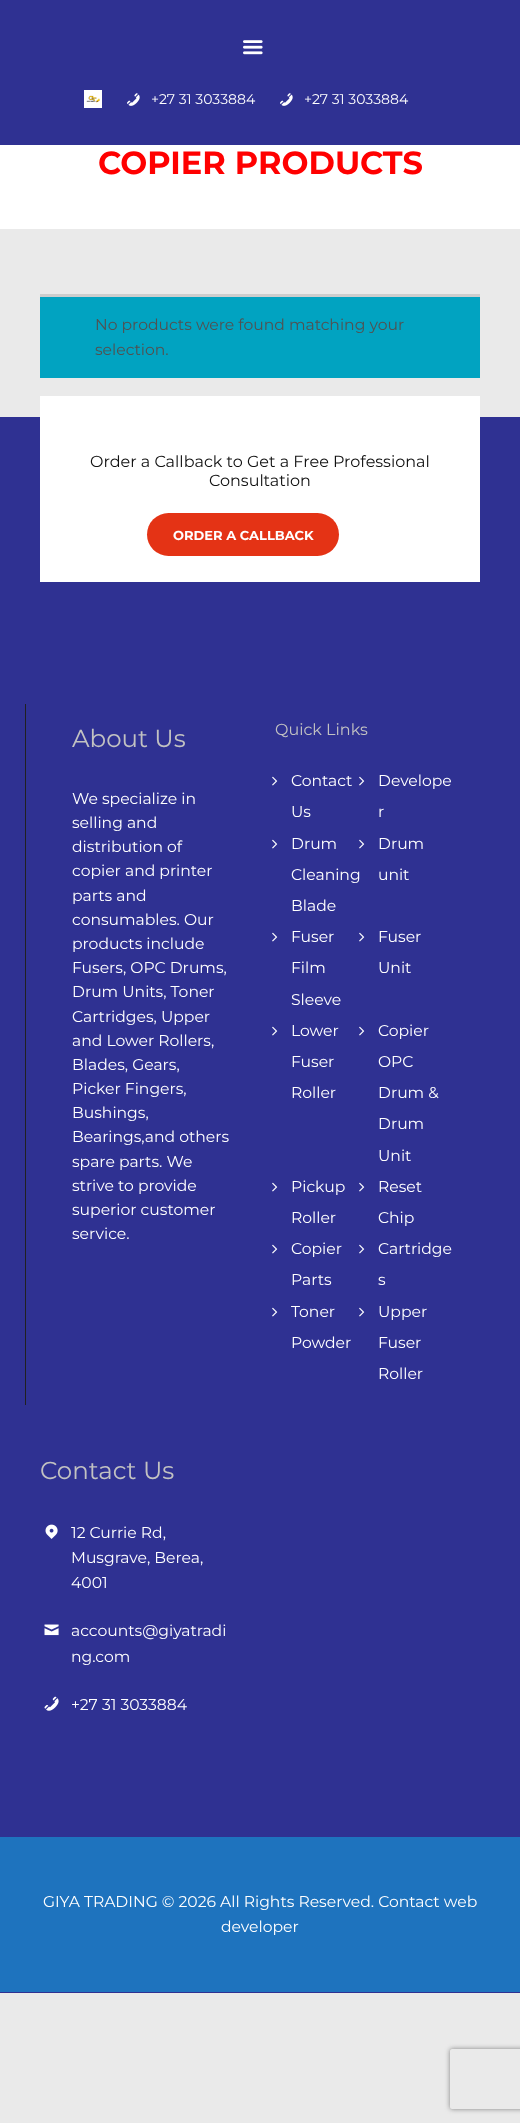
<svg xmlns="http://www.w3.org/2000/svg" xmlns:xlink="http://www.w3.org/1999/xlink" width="520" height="2123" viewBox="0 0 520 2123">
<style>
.cls-1{font:14px Montserrat;fill:#ffffff}
.cls-2{font:bold 32px Montserrat;fill:#ff0000}
.cls-3{font:15.6px Montserrat;fill:#515151}
.cls-4{font:16px Montserrat;fill:#111111}
.cls-5{font:bold 13px Montserrat;fill:#ffffff}
.cls-6{font:24.5px Montserrat;fill:#c2c2c2}
.cls-7{font:15.6px Montserrat;fill:#ffffff}
.cls-8{font:16px Montserrat;fill:#c2c2c2}
</style>
<defs>
<clipPath id="clip1"><path d="M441 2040H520V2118H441ZM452 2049H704C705 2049 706 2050 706 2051V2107C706 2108 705 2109 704 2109H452C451 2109 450 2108 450 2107V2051C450 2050 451 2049 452 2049Z" clip-rule="evenodd"/></clipPath>
</defs>
<rect width="100%" height="100%" fill="#eaeaea"/>
<rect fill="#2f3192" x="0" y="0" width="520" height="145"/>
<image xlink:href="image0.png" x="243" y="40" width="20" height="15"/>
<image xlink:href="image1.png" x="84" y="90" width="18" height="18"/>
<image xlink:href="image2.png" x="127" y="93" width="13" height="13"/>
<image xlink:href="image2.png" x="280" y="93" width="13" height="13"/>
<rect fill="#ffffff" x="0" y="145" width="520" height="84"/>
<rect fill="#01a3c1" x="40" y="297" width="440" height="81"/>
<rect fill="#cdcdcd" x="40" y="294" width="440" height="3"/>
<rect fill="#2f3192" x="0" y="417" width="520" height="1576"/>
<rect fill="#ffffff" x="40" y="396" width="440" height="186"/>
<rect fill="#e43315" x="147" y="513" width="192" height="43" rx="21.5"/>
<rect fill="#202020" x="25" y="704" width="1" height="701"/>
<image xlink:href="image3.png" x="272" y="776" width="6" height="10"/>
<image xlink:href="image3.png" x="359" y="776" width="6" height="10"/>
<image xlink:href="image3.png" x="272" y="839" width="6" height="10"/>
<image xlink:href="image3.png" x="359" y="839" width="6" height="10"/>
<image xlink:href="image3.png" x="272" y="932" width="6" height="10"/>
<image xlink:href="image3.png" x="359" y="932" width="6" height="10"/>
<image xlink:href="image3.png" x="272" y="1026" width="6" height="10"/>
<image xlink:href="image3.png" x="359" y="1026" width="6" height="10"/>
<image xlink:href="image3.png" x="272" y="1182" width="6" height="10"/>
<image xlink:href="image3.png" x="359" y="1182" width="6" height="10"/>
<image xlink:href="image3.png" x="272" y="1244" width="6" height="10"/>
<image xlink:href="image3.png" x="359" y="1244" width="6" height="10"/>
<image xlink:href="image3.png" x="272" y="1307" width="6" height="10"/>
<image xlink:href="image3.png" x="359" y="1307" width="6" height="10"/>
<image xlink:href="image4.png" x="45" y="1524" width="13" height="15"/>
<image xlink:href="image5.png" x="44" y="1624" width="15" height="12"/>
<image xlink:href="image6.png" x="44" y="1696" width="15" height="15"/>
<rect fill="#1e73be" x="0" y="1837" width="520" height="155"/>
<g clip-path="url(#clip1)">
<rect fill="#808080" filter="blur(2.5px)" x="450" y="2049" width="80" height="60" rx="2"/>
</g>
<text class="cls-1" x="151" y="104">+27 31 3033884</text>
<text class="cls-1" x="304" y="104">+27 31 3033884</text>
<text class="cls-2" x="98" y="174">COPIER PRODUCTS</text>
<text class="cls-3"><tspan x="95" y="330">No products were found matching your</tspan><tspan x="95" y="355">selection.</tspan></text>
<text class="cls-4" x="90" y="467">Order a Callback to Get a Free Professional</text>
<text class="cls-4" x="209" y="486">Consultation</text>
<text class="cls-5" x="173" y="540">ORDER A CALLBACK</text>
<text class="cls-6" x="72" y="747">About Us</text>
<text class="cls-7"><tspan x="72" y="804">We specialize in</tspan><tspan x="72" y="828">selling and</tspan><tspan x="72" y="852">distribution of</tspan><tspan x="72" y="876">copier and printer</tspan><tspan x="72" y="901">parts and</tspan><tspan x="72" y="925">consumables. Our</tspan><tspan x="72" y="949">products include</tspan><tspan x="72" y="973">Fusers, OPC Drums,</tspan><tspan x="72" y="997">Drum Units, Toner</tspan><tspan x="72" y="1022">Cartridges, Upper</tspan><tspan x="72" y="1046">and Lower Rollers,</tspan><tspan x="72" y="1070">Blades, Gears,</tspan><tspan x="72" y="1094">Picker Fingers,</tspan><tspan x="72" y="1118">Bushings,</tspan><tspan x="72" y="1142">Bearings,and others</tspan><tspan x="72" y="1167">spare parts. We</tspan><tspan x="72" y="1191">strive to provide</tspan><tspan x="72" y="1215">superior customer</tspan><tspan x="72" y="1239">service.</tspan></text>
<text class="cls-8" x="275" y="735">Quick Links</text>
<text class="cls-7"><tspan x="291" y="786">Contact</tspan><tspan x="291" y="817">Us</tspan></text>
<text class="cls-7"><tspan x="378" y="786">Develope</tspan><tspan x="378" y="817">r</tspan></text>
<text class="cls-7"><tspan x="291" y="849">Drum</tspan><tspan x="291" y="880">Cleaning</tspan><tspan x="291" y="911">Blade</tspan></text>
<text class="cls-7"><tspan x="378" y="849">Drum</tspan><tspan x="378" y="880">unit</tspan></text>
<text class="cls-7"><tspan x="291" y="942">Fuser</tspan><tspan x="291" y="973">Film</tspan></text>
<text class="cls-7" x="291" y="1005">Sleeve</text>
<text class="cls-7"><tspan x="378" y="942">Fuser</tspan><tspan x="378" y="973">Unit</tspan></text>
<text class="cls-7"><tspan x="291" y="1036">Lower</tspan><tspan x="291" y="1067">Fuser</tspan><tspan x="291" y="1098">Roller</tspan></text>
<text class="cls-7"><tspan x="378" y="1036">Copier</tspan><tspan x="378" y="1067">OPC</tspan><tspan x="378" y="1098">Drum &amp;</tspan><tspan x="378" y="1129">Drum</tspan></text>
<text class="cls-7" x="378" y="1161">Unit</text>
<text class="cls-7"><tspan x="291" y="1192">Pickup</tspan><tspan x="291" y="1223">Roller</tspan></text>
<text class="cls-7"><tspan x="378" y="1192">Reset</tspan><tspan x="378" y="1223">Chip</tspan></text>
<text class="cls-7"><tspan x="291" y="1254">Copier</tspan><tspan x="291" y="1285">Parts</tspan></text>
<text class="cls-7"><tspan x="378" y="1254">Cartridge</tspan><tspan x="378" y="1285">s</tspan></text>
<text class="cls-7"><tspan x="291" y="1317">Toner</tspan><tspan x="291" y="1348">Powder</tspan></text>
<text class="cls-7"><tspan x="378" y="1317">Upper</tspan><tspan x="378" y="1348">Fuser</tspan><tspan x="378" y="1379">Roller</tspan></text>
<text class="cls-6" x="40" y="1479">Contact Us</text>
<text class="cls-7"><tspan x="71" y="1538">12 Currie Rd,</tspan><tspan x="71" y="1563">Musgrave, Berea,</tspan><tspan x="71" y="1588">4001</tspan></text>
<text class="cls-7"><tspan x="71" y="1636">accounts@giyatradi</tspan><tspan x="71" y="1662">ng.com</tspan></text>
<text class="cls-7" x="71" y="1710">+27 31 3033884</text>
<text class="cls-7" x="43" y="1907">GIYA TRADING © 2026 All Rights Reserved. Contact web</text>
<text class="cls-7" x="221" y="1932">developer</text>
</svg>
